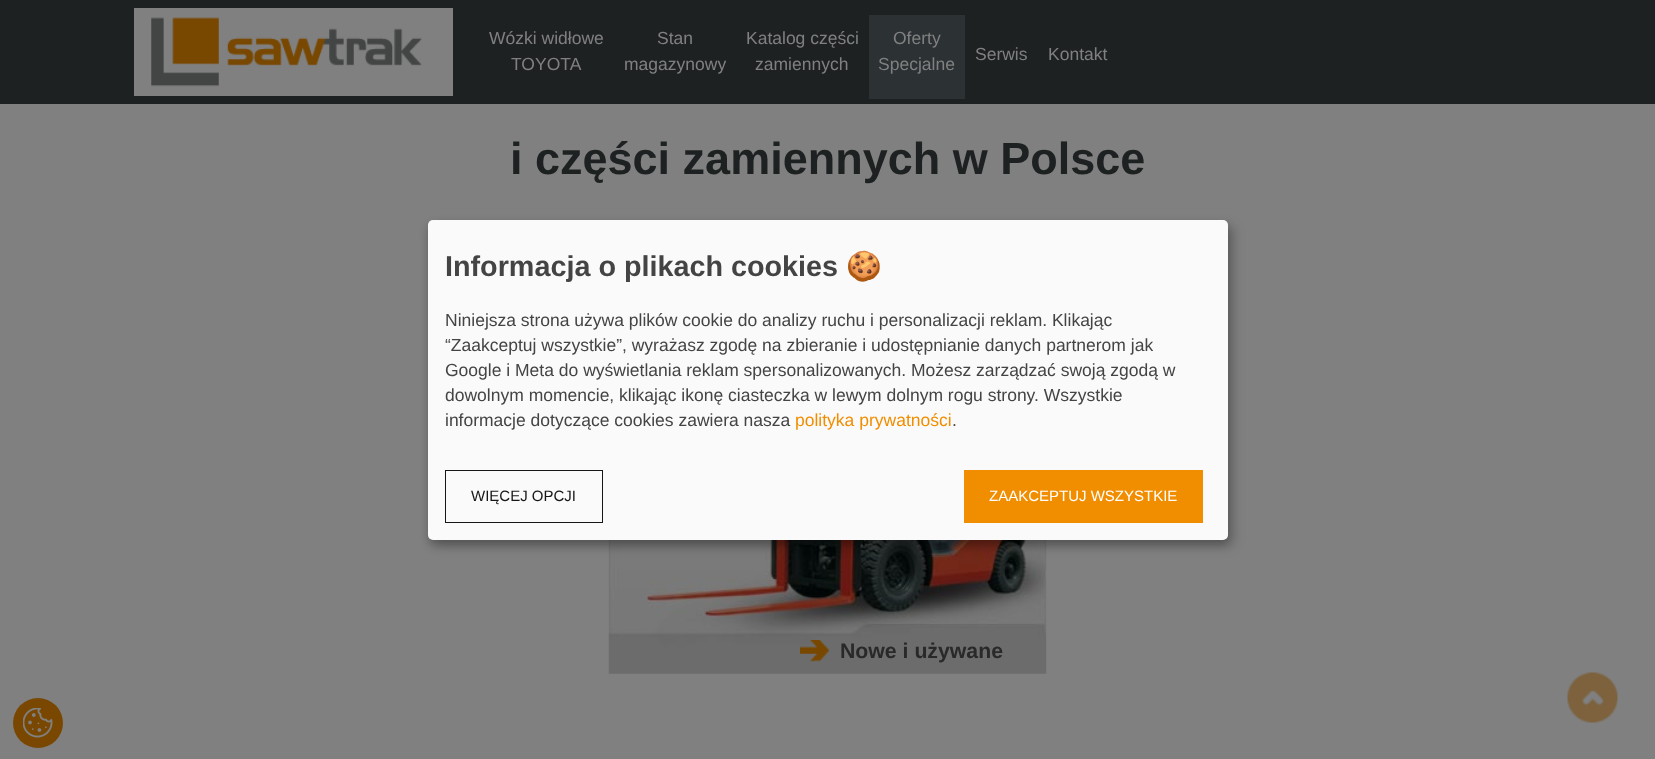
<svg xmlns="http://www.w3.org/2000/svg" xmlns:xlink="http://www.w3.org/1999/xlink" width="1655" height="759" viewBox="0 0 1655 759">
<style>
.cls-1{font:17.5px Liberation Sans;fill:#808080}
.cls-2{font:bold 45px Liberation Sans;fill:#1e2122}
.cls-3{font:bold 21.25px Liberation Sans;fill:#292929}
.cls-4{font:bold 28.75px Liberation Sans;fill:#444444}
.cls-5{font:bold 28.75px Noto Color Emoji;fill:#444444}
.cls-6{font:17.5px Liberation Sans;fill:#444444}
.cls-7{font:17.5px Liberation Sans;fill:#f18e00}
.cls-8{font:15px Liberation Sans;fill:#161616}
.cls-9{font:15px Liberation Sans;fill:#ffffff}
</style>
<rect width="100%" height="100%" fill="#808080"/>
<rect fill="#1e2122" x="0" y="0" width="1655" height="104"/>
<rect fill="#808080" x="134" y="8" width="319" height="88"/>
<image xlink:href="image0.png" x="151" y="17" width="271" height="70"/>
<rect fill="#2c3133" x="869" y="15" width="96" height="84"/>
<image xlink:href="image1.png" x="608" y="540" width="439" height="134"/>
<image xlink:href="image2.png" x="800" y="640" width="30" height="22"/>
<rect fill="#000000" fill-opacity="0.19" filter="blur(6px)" x="434" y="226" width="800" height="320" rx="5"/>
<rect fill="#000000" fill-opacity="0.2" filter="blur(4px)" x="428" y="225" width="800" height="320" rx="5"/>
<rect fill="#fafafa" x="428" y="220" width="800" height="320" rx="5"/>
<rect fill="none" stroke="#161616" x="445.5" y="470.5" width="157" height="52"/>
<rect fill="#f18e00" x="964" y="470" width="239" height="53"/>
<circle fill="#794700" cx="38" cy="723" r="25"/>
<image xlink:href="image3.png" x="23" y="708" width="30" height="30"/>
<image xlink:href="image4.png" x="1567" y="672" width="51" height="51"/>
<text class="cls-1" x="489" y="44">Wózki widłowe</text>
<text class="cls-1" x="511" y="70">TOYOTA</text>
<text class="cls-1" x="657" y="44">Stan</text>
<text class="cls-1" x="624" y="70">magazynowy</text>
<text class="cls-1" x="746" y="44">Katalog części</text>
<text class="cls-1" x="755" y="70">zamiennych</text>
<text class="cls-1" x="893" y="44">Oferty</text>
<text class="cls-1" x="878" y="70">Specjalne</text>
<text class="cls-1" x="975" y="60">Serwis</text>
<text class="cls-1" x="1048" y="60">Kontakt</text>
<text class="cls-2" x="510" y="174">i części zamiennych w Polsce</text>
<text class="cls-3" x="840" y="658">Nowe i używane</text>
<text class="cls-4" x="445" y="276">Informacja o plikach cookies</text>
<text class="cls-5" x="846" y="276">🍪</text>
<text class="cls-6"><tspan x="445" y="326">Niniejsza strona używa plików cookie do analizy ruchu i personalizacji reklam. Klikając</tspan><tspan x="445" y="351">“Zaakceptuj wszystkie”, wyrażasz zgodę na zbieranie i udostępnianie danych partnerom jak</tspan><tspan x="445" y="376">Google i Meta do wyświetlania reklam spersonalizowanych. Możesz zarządzać swoją zgodą w</tspan><tspan x="445" y="401">dowolnym momencie, klikając ikonę ciasteczka w lewym dolnym rogu strony. Wszystkie</tspan><tspan x="445" y="426">informacje dotyczące cookies zawiera nasza</tspan></text>
<text class="cls-7" x="795" y="426">polityka prywatności</text>
<text class="cls-6" x="952" y="426">.</text>
<text class="cls-8" x="471" y="501">WIĘCEJ OPCJI</text>
<text class="cls-9" x="989" y="501">ZAAKCEPTUJ WSZYSTKIE</text>
</svg>
